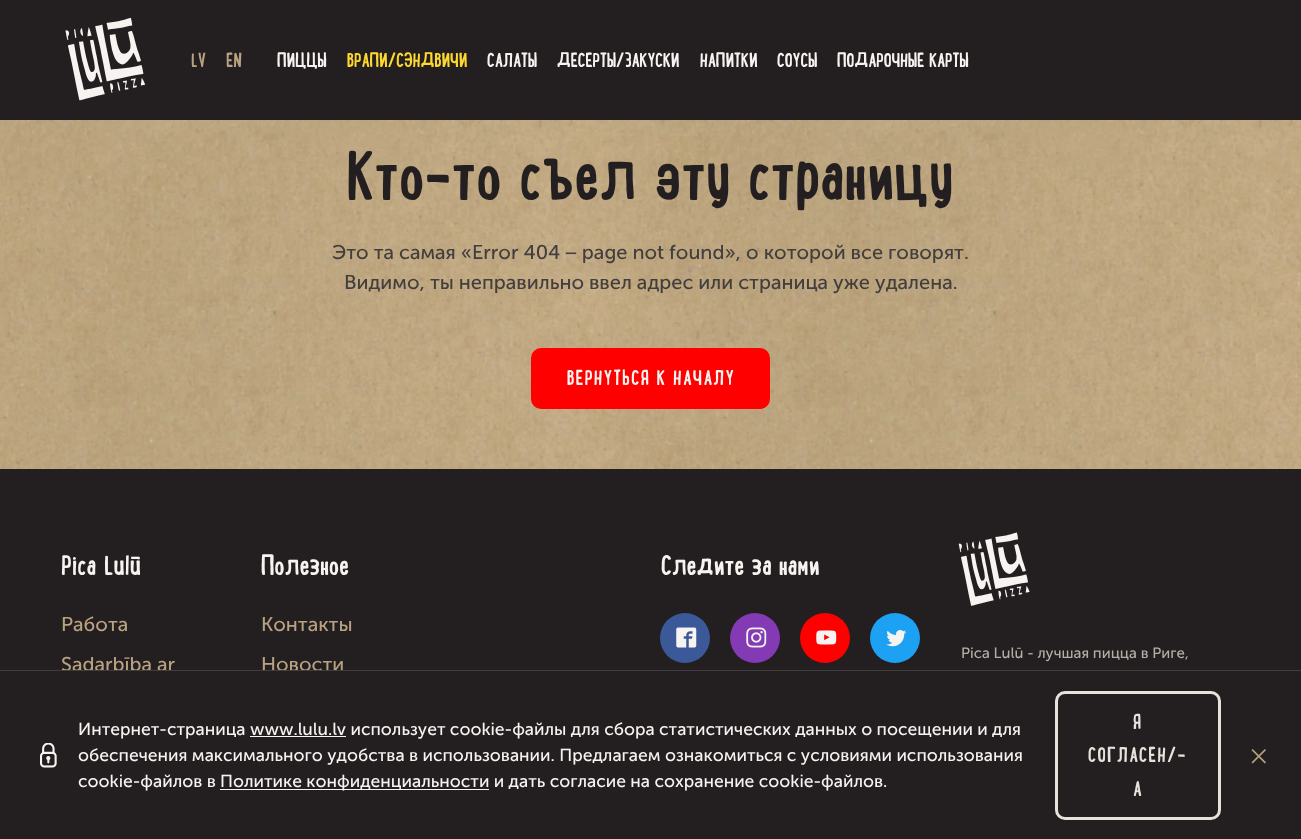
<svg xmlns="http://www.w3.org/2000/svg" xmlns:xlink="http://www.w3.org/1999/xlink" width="1301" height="839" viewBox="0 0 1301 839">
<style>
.cls-1{font:21.25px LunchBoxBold;fill:#b8a280}
.cls-2{font:21.25px LunchBoxBold;fill:#f6f3f0}
.cls-3{font:21.25px LunchBoxBold;fill:#fdd831}
.cls-4{font:75px LunchBoxBold;fill:#231f20}
.cls-5{font:20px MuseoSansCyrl;fill:#423e3d}
.cls-6{font:22.5px LunchBoxBold;letter-spacing:1.4px;fill:#f6f3f0}
.cls-7{font:30px LunchBoxBold;fill:#f6f3f0}
.cls-8{font:20px MuseoSansCyrl;fill:#b8a280}
.cls-9{font:15px MuseoSansCyrl;fill:#b5aea7}
.cls-10{font:17.5px MuseoSansCyrl;fill:#f6f3f0}
.cls-11{font:22.5px LunchBoxBold;letter-spacing:1.4px;fill:#e6e2dc}
</style>
<rect width="100%" height="100%" fill="#ffffff"/>
<image xlink:href="image0.png" x="0" y="120" width="1301" height="349"/>
<rect fill="#231f20" x="0" y="0" width="1301" height="120"/>
<image xlink:href="image1.png" x="65" y="17" width="81" height="84"/>
<rect fill="#ff0000" x="531" y="348" width="239" height="61" rx="10"/>
<rect fill="#231f20" x="0" y="469" width="1301" height="201"/>
<circle fill="#3b5998" cx="685" cy="638" r="25"/>
<image xlink:href="image2.png" x="676" y="627" width="21" height="21"/>
<circle fill="#833ab4" cx="755" cy="638" r="25"/>
<image xlink:href="image3.png" x="746" y="627" width="21" height="21"/>
<circle fill="#ff0000" cx="825" cy="638" r="25"/>
<image xlink:href="image4.png" x="816" y="630" width="21" height="15"/>
<circle fill="#1da1f2" cx="895" cy="638" r="25"/>
<image xlink:href="image5.png" x="886" y="630" width="20" height="17"/>
<image xlink:href="image6.png" x="958" y="532" width="72" height="74"/>
<text class="cls-1" x="191" y="67">LV</text>
<text class="cls-1" x="226" y="67">EN</text>
<text class="cls-2" x="277" y="67">ПИЦЦЫ</text>
<text class="cls-3" x="347" y="67">ВРАПИ/СЭНДВИЧИ</text>
<text class="cls-2" x="487" y="67">САЛАТЫ</text>
<text class="cls-2" x="557" y="67">ДЕСЕРТЫ/ЗАКУСКИ</text>
<text class="cls-2" x="700" y="67">НАПИТКИ</text>
<text class="cls-2" x="777" y="67">СОУСЫ</text>
<text class="cls-2" x="837" y="67">ПОДАРОЧНЫЕ КАРТЫ</text>
<text class="cls-4" x="347" y="200">Кто-то съел эту страницу</text>
<text class="cls-5" x="332" y="259">Это та самая «Error 404 − page not found», о которой все говорят.</text>
<text class="cls-5" x="344" y="289">Видимо, ты неправильно ввел адрес или страница уже удалена.</text>
<text class="cls-6" x="567" y="385">ВЕРНУТЬСЯ К НАЧАЛУ</text>
<text class="cls-7" x="61" y="575">Pica Lulū</text>
<text class="cls-8" x="61" y="631">Работа</text>
<text class="cls-8" x="61" y="671">Sadarbība ar</text>
<text class="cls-7" x="261" y="575">Полезное</text>
<text class="cls-8" x="261" y="631">Kонтакты</text>
<text class="cls-8" x="261" y="671">Новости</text>
<text class="cls-7" x="661" y="575">Следите за нами</text>
<text class="cls-9" x="961" y="658">Pica Lulū - лучшая пицца в Риге,</text>
<rect fill="#231f20" x="0" y="671" width="1301" height="168"/>
<rect fill="#423e3d" x="0" y="670" width="1301" height="1"/>
<image xlink:href="image7.png" x="40" y="743" width="17" height="25"/>
<text class="cls-10" x="78" y="735">Интернет-страница www.lulu.lv использует cookie-файлы для сбора статистических данных о посещении и для</text>
<rect fill="#f6f3f0" x="250" y="736" width="96" height="1"/>
<text class="cls-10"><tspan x="78" y="761">обеспечения максимального удобства в использовании. Предлагаем ознакомиться с условиями использования</tspan><tspan x="78" y="787">cookie-файлов в</tspan></text>
<rect fill="#f6f3f0" x="220" y="789" width="269" height="1"/>
<text class="cls-10" x="220" y="787">Политике конфиденциальности и дать согласие на сохранение cookie-файлов.</text>
<rect fill="none" stroke="#e6e2dc" stroke-width="3" x="1056.5" y="692.5" width="163" height="126" rx="8.5"/>
<text class="cls-11" x="1133" y="729">Я</text>
<text class="cls-11" x="1088" y="762">СОГЛАСЕН/-</text>
<text class="cls-11" x="1133" y="796">А</text>
<image xlink:href="image8.png" x="1251" y="749" width="15" height="15"/>
</svg>
